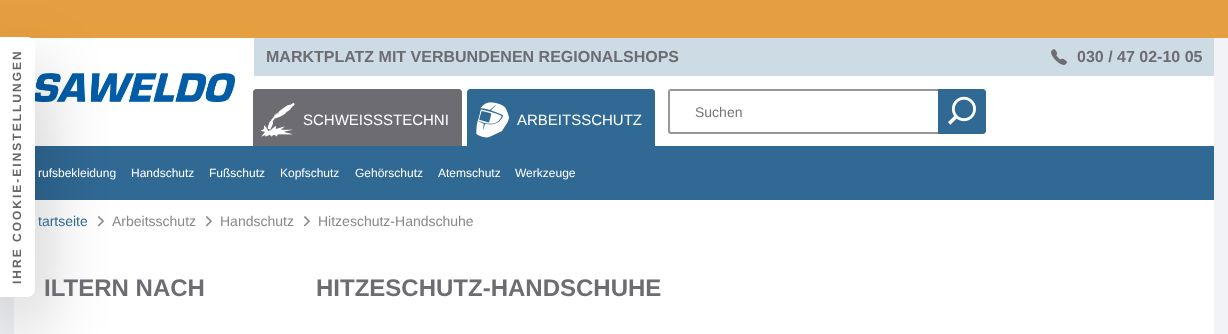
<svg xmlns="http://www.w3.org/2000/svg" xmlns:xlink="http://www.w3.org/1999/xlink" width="1228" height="334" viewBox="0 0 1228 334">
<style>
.cls-1{font:bold 12px Liberation Sans;letter-spacing:2px;fill:#666666}
.cls-2{font:bold 16px Liberation Sans;fill:#6d6c73}
.cls-3{font:14px Liberation Sans;fill:#757575}
.cls-4{font:15px Liberation Sans;fill:#ffffff}
.cls-5{font:12px Liberation Sans;fill:#ffffff}
.cls-6{font:14px Liberation Sans;fill:#306994}
.cls-7{font:14px Liberation Sans;fill:#888888}
.cls-8{font:bold 24px Liberation Sans;fill:#6d6c73}
</style>
<rect width="100%" height="100%" fill="#f2f3f7"/>
<rect fill="#e69f40" x="0" y="0" width="1228" height="38"/>
<rect fill="#ffffff" x="30" y="38" width="1184" height="169"/>
<rect fill="#306994" x="35" y="146" width="1179" height="54"/>
<image xlink:href="image4.png" x="35" y="73" width="200" height="29"/>
<rect fill="#ffffff" x="14" y="207" width="1200" height="127"/>
<image xlink:href="image5.png" x="98" y="216" width="6" height="11"/>
<rect fill="#000000" fill-opacity="0.3" filter="blur(34px)" x="0" y="69" width="35" height="260" rx="8"/>
<path fill="#ffffff" d="M0 37H27C31.5 37 35 40.5 35 45V289C35 293.5 31.5 297 27 297H0Z"/>
<rect fill="#cddbe5" x="254" y="38" width="960" height="38"/>
<image xlink:href="image0.png" x="1051" y="49" width="16" height="16"/>
<path fill="#979797" fill-rule="evenodd" d="M671 89H938V134H671C669 134 668 133 668 131V92C668 90 669 89 671 89ZM671 91H938V132H671L670 131V91Z"/>
<path fill="#306994" d="M938 89H983C984.5 89 986 90.5 986 92V131C986 132.5 984.5 134 983 134H938Z"/>
<image xlink:href="image1.png" x="948" y="96" width="28" height="29"/>
<path fill="#306994" d="M470 89H652C653.5 89 655 90.5 655 92V146H467V92C467 90.5 468.5 89 470 89Z"/>
<image xlink:href="image2.png" x="476" y="102" width="33" height="36"/>
<path fill="#6d6c73" d="M256 89H459C460.5 89 462 90.5 462 92V146H253V92C253 90.5 254.5 89 256 89Z"/>
<image xlink:href="image3.png" x="260" y="102" width="35" height="35"/>
<image xlink:href="image5.png" x="206" y="216" width="6" height="11"/>
<image xlink:href="image5.png" x="304" y="216" width="6" height="11"/>
<text class="cls-1" x="21" y="284" transform="rotate(-90 21 284)">IHRE COOKIE-EINSTELLUNGEN</text>
<text class="cls-2" x="266" y="62">MARKTPLATZ MIT VERBUNDENEN REGIONALSHOPS</text>
<text class="cls-2" x="1077" y="62">030 / 47 02-10 05</text>
<text class="cls-3" x="695" y="117">Suchen</text>
<text class="cls-4" x="517" y="125">ARBEITSSCHUTZ</text>
<text class="cls-5" x="38" y="177">rufsbekleidung</text>
<text class="cls-5" x="131" y="177">Handschutz</text>
<text class="cls-5" x="209" y="177">Fußschutz</text>
<text class="cls-5" x="280" y="177">Kopfschutz</text>
<text class="cls-5" x="355" y="177">Gehörschutz</text>
<text class="cls-5" x="438" y="177">Atemschutz</text>
<text class="cls-5" x="515" y="177">Werkzeuge</text>
<text class="cls-4" x="303" y="125">SCHWEISSSTECHNI</text>
<text class="cls-6" x="38" y="226">tartseite</text>
<text class="cls-7" x="112" y="226">Arbeitsschutz</text>
<text class="cls-7" x="220" y="226">Handschutz</text>
<text class="cls-7" x="318" y="226">Hitzeschutz-Handschuhe</text>
<text class="cls-8" x="44" y="296">ILTERN NACH</text>
<text class="cls-8" x="316" y="296">HITZESCHUTZ-HANDSCHUHE</text>
</svg>
